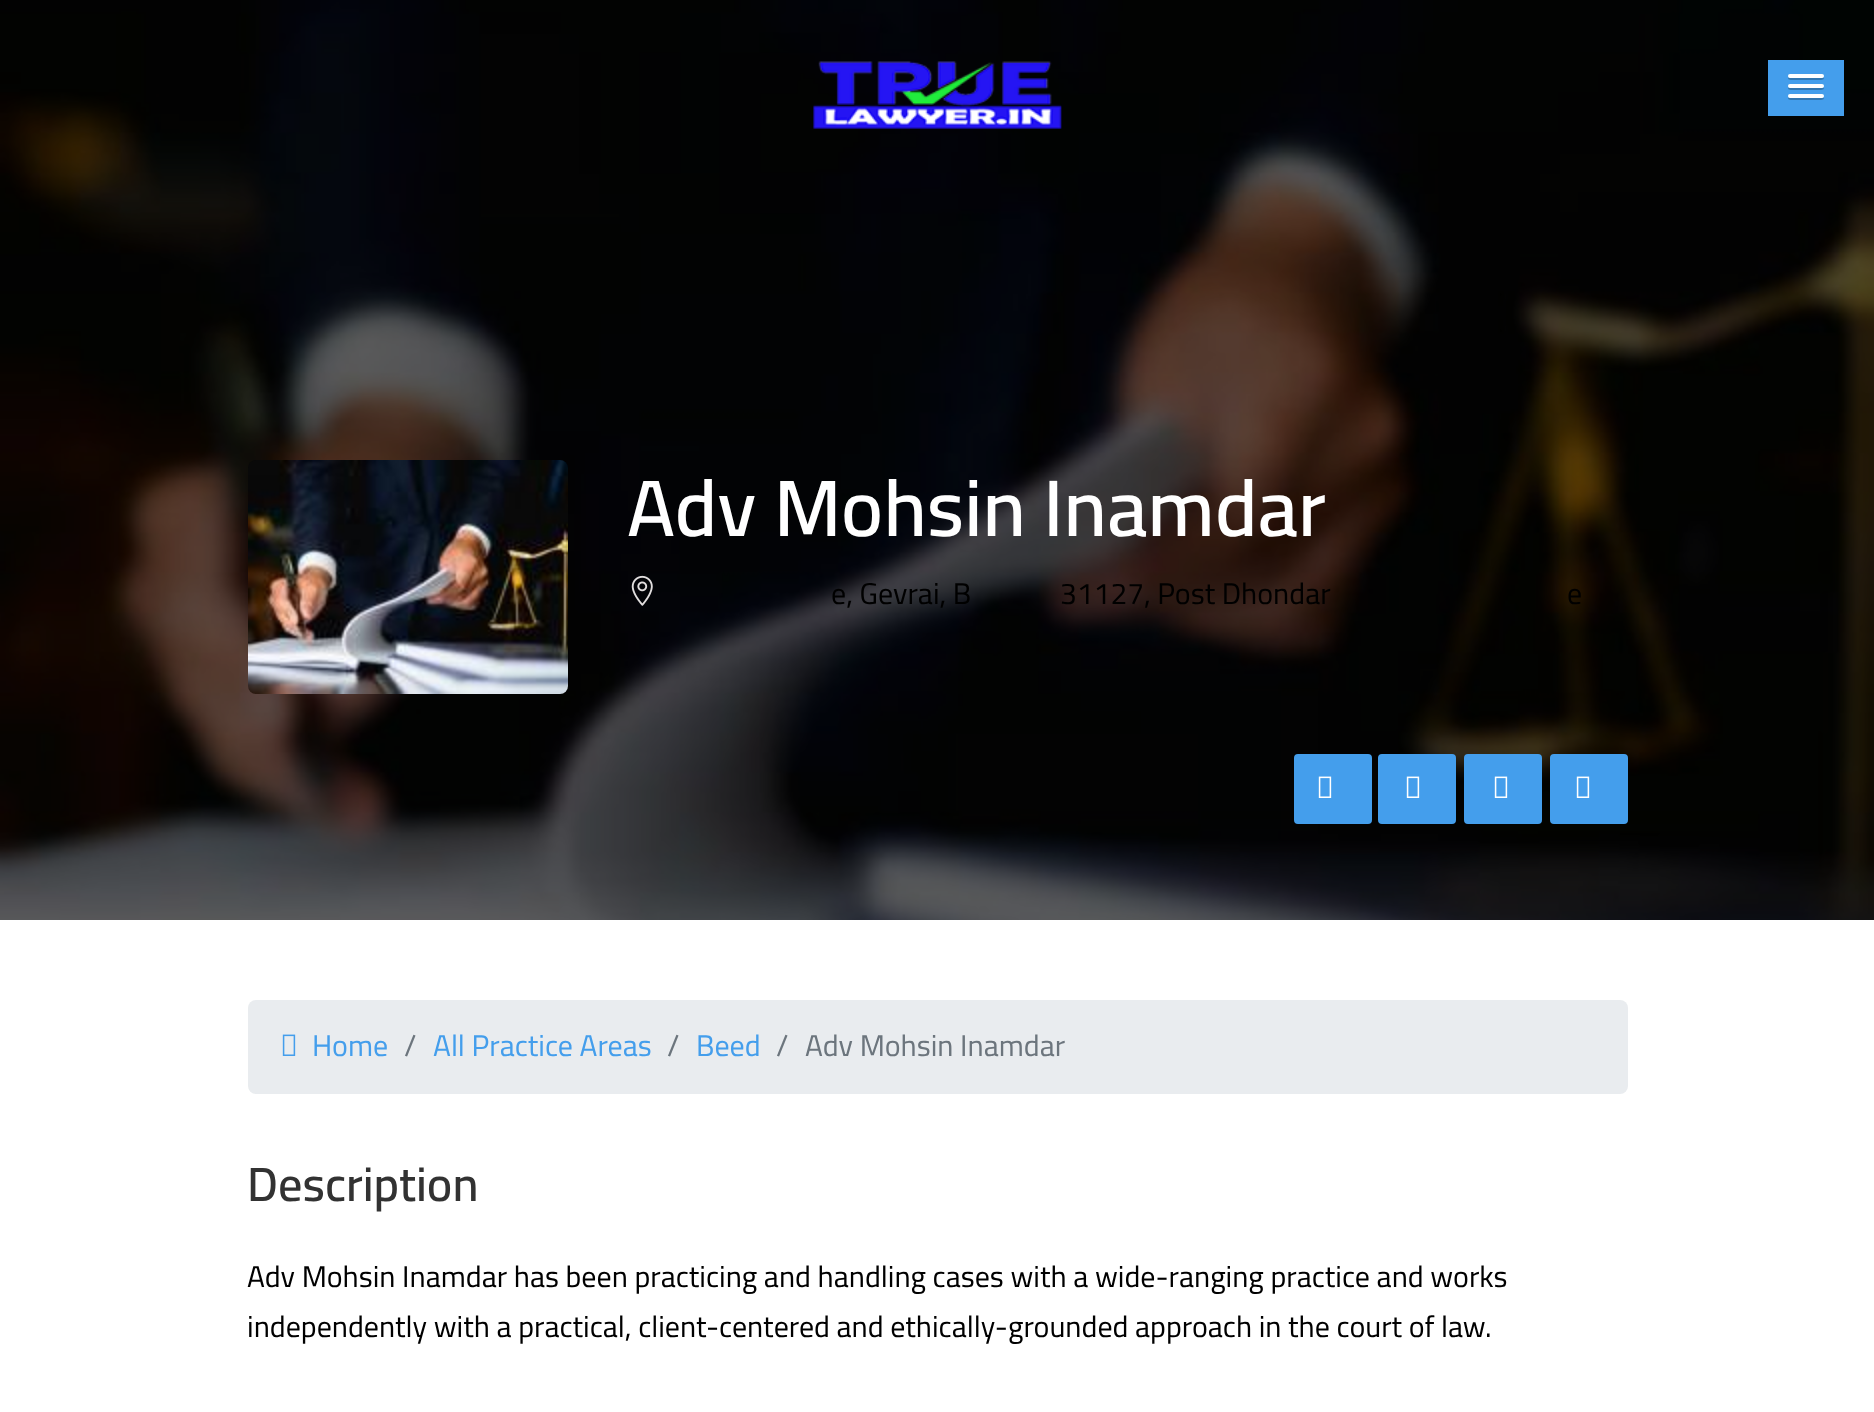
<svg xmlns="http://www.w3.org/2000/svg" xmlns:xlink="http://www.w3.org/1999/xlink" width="1874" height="1412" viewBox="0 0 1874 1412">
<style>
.cls-1{font:600 80px Cairo;fill:#ffffff}
.cls-2{font:30px Cairo;fill:#000000}
.cls-3{font:30px Cairo;fill:#449eec}
.cls-4{font:30px Cairo;fill:#6c757d}
.cls-5{font:600 48px Cairo;fill:#323232}
</style>
<rect width="100%" height="100%" fill="#ffffff"/>
<image xlink:href="image1.png" x="0" y="0" width="1874" height="920"/>
<image xlink:href="image0.png" x="813" y="61" width="249" height="68"/>
<rect fill="#449eec" x="1768" y="60" width="76" height="56"/>
<path fill="#3377b1" d="M1788.5 77C1786 81 1795 80 1795.5 80H1816.5C1817 80 1826 81 1823.5 77C1823.5 77.5 1822.5 78 1822 78H1790C1789.5 78 1788.5 77.5 1788.5 77Z"/>
<rect fill="#ffffff" x="1788" y="74" width="36" height="4" rx="2"/>
<path fill="#3377b1" d="M1788.5 87C1786 91 1795 90 1795.5 90H1816.5C1817 90 1826 91 1823.5 87C1823.5 87.5 1822.5 88 1822 88H1790C1789.5 88 1788.5 87.5 1788.5 87Z"/>
<rect fill="#ffffff" x="1788" y="84" width="36" height="4" rx="2"/>
<path fill="#3377b1" d="M1788.5 97C1786 101 1795 100 1795.5 100H1816.5C1817 100 1826 101 1823.5 97C1823.5 97.5 1822.5 98 1822 98H1790C1789.5 98 1788.5 97.5 1788.5 97Z"/>
<rect fill="#ffffff" x="1788" y="94" width="36" height="4" rx="2"/>
<image xlink:href="image2.png" x="248" y="460" width="320" height="234"/>
<image xlink:href="image3.png" x="631" y="575" width="22" height="31"/>
<rect fill="#449eec" stroke="#449eec" stroke-width="2" x="1295" y="755" width="76" height="68" rx="3"/>
<image xlink:href="image4.png" x="1318" y="776" width="14" height="22"/>
<rect fill="#449eec" stroke="#449eec" stroke-width="2" x="1379" y="755" width="76" height="68" rx="3"/>
<image xlink:href="image4.png" x="1406" y="776" width="14" height="22"/>
<rect fill="#449eec" stroke="#449eec" stroke-width="2" x="1465" y="755" width="76" height="68" rx="3"/>
<image xlink:href="image4.png" x="1494" y="776" width="14" height="22"/>
<rect fill="#449eec" stroke="#449eec" stroke-width="2" x="1551" y="755" width="76" height="68" rx="3"/>
<image xlink:href="image4.png" x="1576" y="776" width="14" height="22"/>
<rect fill="#e9ecef" x="248" y="1000" width="1380" height="94" rx="8"/>
<image xlink:href="image5.png" x="282" y="1034" width="14" height="22"/>
<text class="cls-1" x="627" y="536">Adv Mohsin Inamdar</text>
<text class="cls-2" x="831" y="604">e, Gevrai, B</text>
<text class="cls-2" x="1060" y="604">31127, Post Dhondar</text>
<text class="cls-2" x="1567" y="604">e</text>
<text class="cls-3" x="312" y="1056">Home</text>
<text class="cls-4" x="404" y="1056">/</text>
<text class="cls-3" x="433" y="1056">All Practice Areas</text>
<text class="cls-4" x="667" y="1056">/</text>
<text class="cls-3" x="696" y="1056">Beed</text>
<text class="cls-4" x="776" y="1056">/</text>
<text class="cls-4" x="805" y="1056">Adv Mohsin Inamdar</text>
<text class="cls-5" x="247" y="1201">Description</text>
<text class="cls-2"><tspan x="247" y="1287">Adv Mohsin Inamdar has been practicing and handling cases with a wide-ranging practice and works</tspan><tspan x="247" y="1337">independently with a practical, client-centered and ethically-grounded approach in the court of law.</tspan></text>
</svg>
